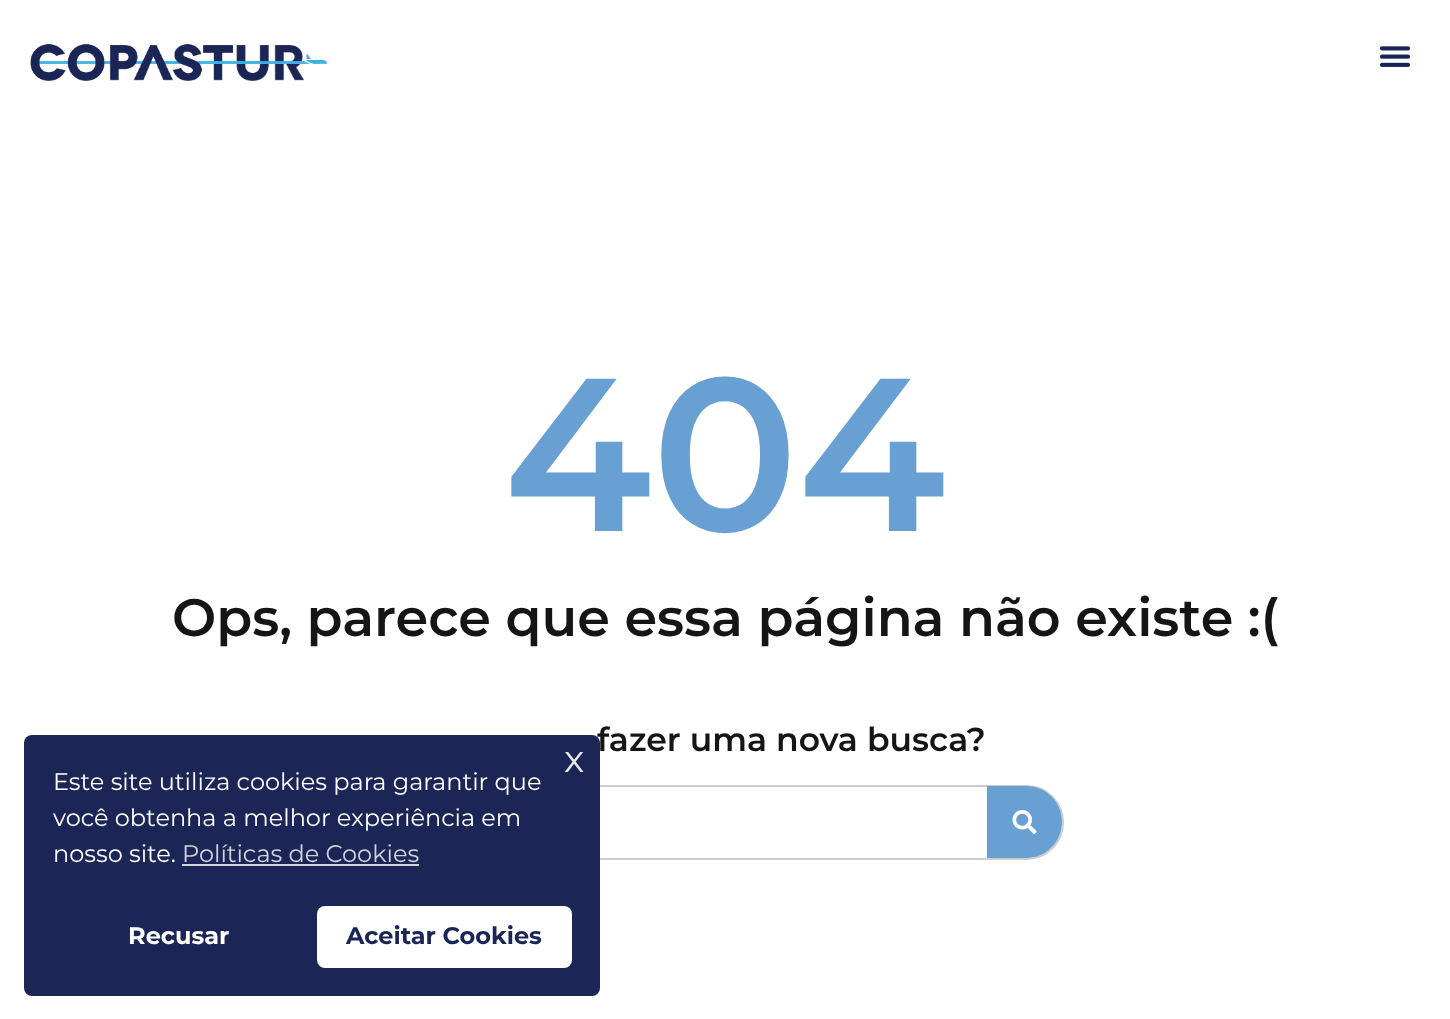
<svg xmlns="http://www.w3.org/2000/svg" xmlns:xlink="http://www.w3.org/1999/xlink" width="1450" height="1019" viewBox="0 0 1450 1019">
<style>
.cls-1{font:600 217.5px Montserrat;fill:#69a0d3}
.cls-2{font:600 52.5px Montserrat;fill:#151515}
.cls-3{font:600 33px Montserrat;fill:#151515}
.cls-4{font:38px Montserrat;fill:#e8e9ee}
.cls-5{font:24px Montserrat;fill:#ffffff}
.cls-6{font:24px Montserrat;fill:#d1d3dd}
.cls-7{font:bold 24px Montserrat;fill:#ffffff}
.cls-8{font:bold 24px Montserrat;fill:#1b2556}
</style>
<rect width="100%" height="100%" fill="#ffffff"/>
<image xlink:href="image0.png" x="30" y="44" width="298" height="37"/>
<image xlink:href="image1.png" x="1379" y="46" width="32" height="21"/>
<rect fill="none" stroke="#cccccc" stroke-width="2" x="388" y="786" width="675" height="73" rx="36.5"/>
<path fill="#69a0d3" d="M987 786H1026C1046 786 1062 802 1062 822C1062 842 1046 858 1026 858H987Z"/>
<image xlink:href="image2.png" x="1012" y="810" width="25" height="24"/>
<text class="cls-1" x="504" y="531">404</text>
<text class="cls-2" x="172" y="636">Ops, parece que essa página não existe :(</text>
<text class="cls-3" x="597" y="751">fazer uma nova busca?</text>
<rect fill="#1b2556" x="24" y="735" width="576" height="261" rx="8"/>
<text class="cls-4" x="564" y="772">x</text>
<text class="cls-5"><tspan x="53" y="790">Este site utiliza cookies para garantir que</tspan><tspan x="53" y="826">você obtenha a melhor experiência em</tspan><tspan x="53" y="862">nosso site.</tspan></text>
<text class="cls-6" x="182" y="862">Políticas de Cookies</text>
<rect fill="#d1d3dd" x="182" y="864" width="237" height="2"/>
<text class="cls-7" x="128" y="944">Recusar</text>
<rect fill="#ffffff" x="317" y="906" width="255" height="62" rx="8"/>
<text class="cls-8" x="346" y="944">Aceitar Cookies</text>
</svg>
